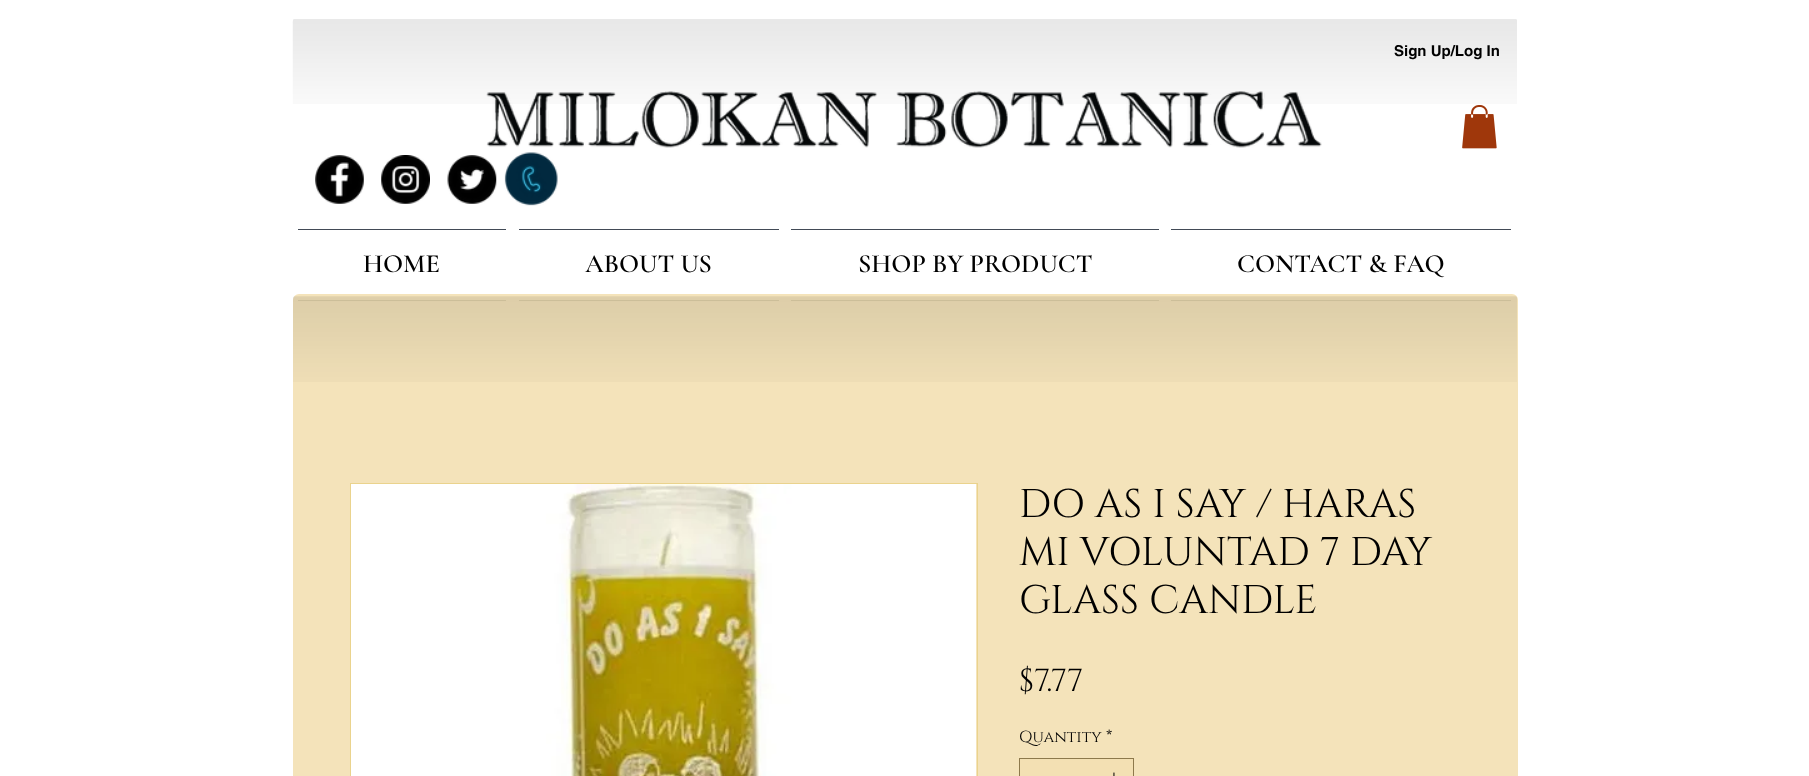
<svg xmlns="http://www.w3.org/2000/svg" xmlns:xlink="http://www.w3.org/1999/xlink" width="1809" height="776" viewBox="0 0 1809 776">
<style>
.cls-1{font:bold 15px helvetica;fill:#000000}
.cls-2{font:600 26.25px Cormorant Garamond;fill:#000000}
.cls-3{font:40px Cinzel;fill:#000000}
.cls-4{font:32px Cinzel;fill:#000000}
.cls-5{font:16.25px Cinzel;fill:#000000}
</style>
<rect width="100%" height="100%" fill="#ffffff"/>
<image xlink:href="image0.png" x="292" y="19" width="1225" height="85"/>
<image xlink:href="image1.png" x="486" y="91" width="836" height="57"/>
<image xlink:href="image2.png" x="1462" y="105" width="35" height="44"/>
<image xlink:href="image3.png" x="315" y="155" width="49" height="49"/>
<image xlink:href="image4.png" x="381" y="155" width="49" height="49"/>
<image xlink:href="image5.png" x="447" y="155" width="50" height="49"/>
<image xlink:href="image6.png" x="504" y="152" width="54" height="54"/>
<rect fill="#424a56" x="298" y="229" width="208" height="1"/>
<rect fill="#424a56" x="298" y="300" width="208" height="1"/>
<rect fill="#424a56" x="519" y="229" width="260" height="1"/>
<rect fill="#424a56" x="519" y="300" width="260" height="1"/>
<rect fill="#424a56" x="791" y="229" width="368" height="1"/>
<rect fill="#424a56" x="791" y="300" width="368" height="1"/>
<rect fill="#424a56" x="1171" y="229" width="340" height="1"/>
<rect fill="#424a56" x="1171" y="300" width="340" height="1"/>
<rect fill="#f3e0b3" fill-opacity="0.9" x="293" y="294" width="1225" height="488" rx="6"/>
<image xlink:href="image7.png" x="293" y="296" width="1224" height="86"/>
<rect fill="none" stroke="#ead38d" x="350.5" y="483.5" width="627" height="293"/>
<image xlink:href="image8.png" x="351" y="484" width="625" height="292"/>
<rect fill="#f3e0b3" stroke="#8d794c" x="1019.5" y="758.5" width="114" height="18"/>
<image xlink:href="image9.png" x="1113" y="772" width="2" height="4"/>
<text class="cls-1" x="1394" y="56">Sign Up/Log In</text>
<text class="cls-2" x="363" y="272">HOME</text>
<text class="cls-2" x="585" y="272">ABOUT US</text>
<text class="cls-2" x="858" y="272">SHOP BY PRODUCT</text>
<text class="cls-2" x="1237" y="272">CONTACT &amp; FAQ</text>
<text class="cls-3"><tspan x="1019" y="517">DO AS I SAY / HARAS</tspan><tspan x="1019" y="565">MI VOLUNTAD 7 DAY</tspan><tspan x="1019" y="613">GLASS CANDLE</tspan></text>
<text class="cls-4" x="1019" y="691">$7.77</text>
<text class="cls-5" x="1019" y="742">Quantity</text>
<text class="cls-5" x="1106" y="742">*</text>
</svg>
